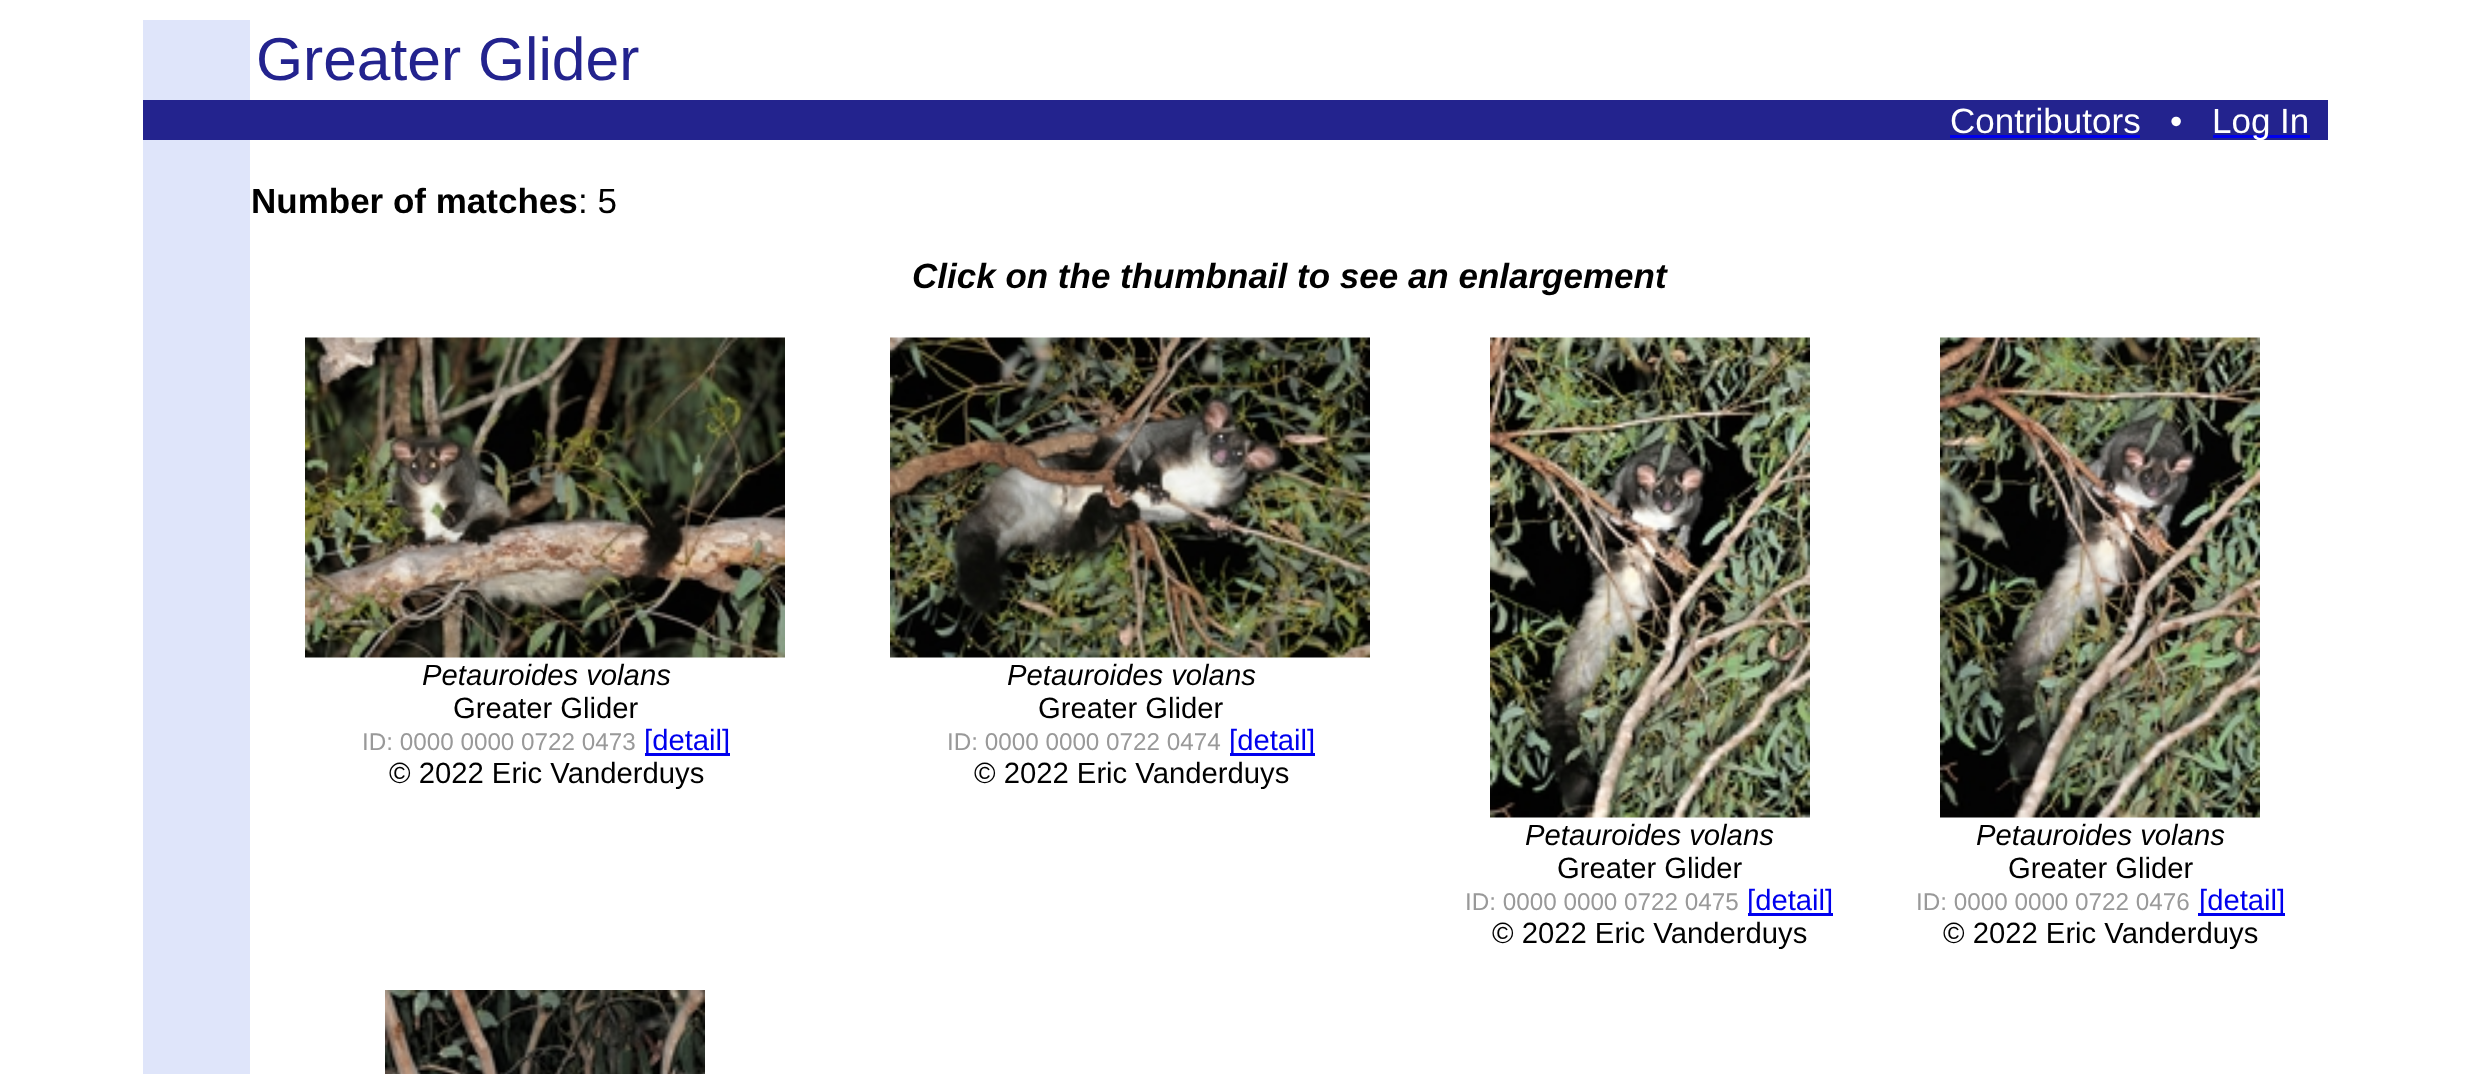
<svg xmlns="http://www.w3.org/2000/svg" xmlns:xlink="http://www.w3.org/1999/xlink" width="2469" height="1074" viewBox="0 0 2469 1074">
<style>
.cls-1{font:60.5px Liberation Sans;fill:#23238e}
.cls-2{font:35px Liberation Sans;fill:#ffffff}
.cls-3{font:bold 35px Liberation Sans;fill:#000000}
.cls-4{font:35px Liberation Sans;fill:#000000}
.cls-5{font:italic bold 35px Liberation Sans;fill:#000000}
.cls-6{font:italic 29.25px Liberation Sans;fill:#000000}
.cls-7{font:29.25px Liberation Sans;fill:#000000}
.cls-8{font:24.25px Liberation Sans;fill:#999999}
.cls-9{font:29.25px Liberation Sans;fill:#0000ee}
</style>
<rect width="100%" height="100%" fill="#ffffff"/>
<rect fill="#dfe5fa" x="143" y="20" width="107" height="80"/>
<rect fill="#23238e" x="143" y="100" width="2185" height="40"/>
<rect fill="#0000ee" x="1950" y="135" width="190" height="3"/>
<rect fill="#0000ee" x="2213" y="135" width="97" height="3"/>
<rect fill="#dfe5fa" x="143" y="140" width="107" height="934"/>
<image xlink:href="image0.png" x="305" y="337" width="480" height="321"/>
<rect fill="#0000ee" x="645" y="753" width="85" height="3"/>
<image xlink:href="image1.png" x="890" y="337" width="480" height="321"/>
<rect fill="#0000ee" x="1230" y="753" width="85" height="3"/>
<image xlink:href="image2.png" x="1490" y="337" width="320" height="481"/>
<rect fill="#0000ee" x="1748" y="913" width="85" height="3"/>
<image xlink:href="image3.png" x="1940" y="337" width="320" height="481"/>
<rect fill="#0000ee" x="2198" y="913" width="87" height="3"/>
<image xlink:href="image4.png" x="385" y="990" width="320" height="84"/>
<text class="cls-1" x="256" y="80">Greater Glider</text>
<text class="cls-2" x="1950" y="133">Contributors</text>
<text class="cls-2" x="2170" y="133">•</text>
<text class="cls-2" x="2212" y="133">Log In</text>
<text class="cls-3" x="251" y="213">Number of matches</text>
<text class="cls-4" x="578" y="213">: 5</text>
<text class="cls-5" x="912" y="288">Click on the thumbnail to see an enlargement</text>
<text class="cls-6" x="422" y="685">Petauroides volans</text>
<text class="cls-7" x="453" y="718">Greater Glider</text>
<text class="cls-8" x="362" y="750">ID: 0000 0000 0722 0473</text>
<text class="cls-9" x="644" y="750">[detail]</text>
<text class="cls-7" x="389" y="783">© 2022 Eric Vanderduys</text>
<text class="cls-6" x="1007" y="685">Petauroides volans</text>
<text class="cls-7" x="1038" y="718">Greater Glider</text>
<text class="cls-8" x="947" y="750">ID: 0000 0000 0722 0474</text>
<text class="cls-9" x="1229" y="750">[detail]</text>
<text class="cls-7" x="974" y="783">© 2022 Eric Vanderduys</text>
<text class="cls-6" x="1525" y="845">Petauroides volans</text>
<text class="cls-7" x="1557" y="878">Greater Glider</text>
<text class="cls-8" x="1465" y="910">ID: 0000 0000 0722 0475</text>
<text class="cls-9" x="1747" y="910">[detail]</text>
<text class="cls-7" x="1492" y="943">© 2022 Eric Vanderduys</text>
<text class="cls-6" x="1976" y="845">Petauroides volans</text>
<text class="cls-7" x="2008" y="878">Greater Glider</text>
<text class="cls-8" x="1916" y="910">ID: 0000 0000 0722 0476</text>
<text class="cls-9" x="2199" y="910">[detail]</text>
<text class="cls-7" x="1943" y="943">© 2022 Eric Vanderduys</text>
</svg>
